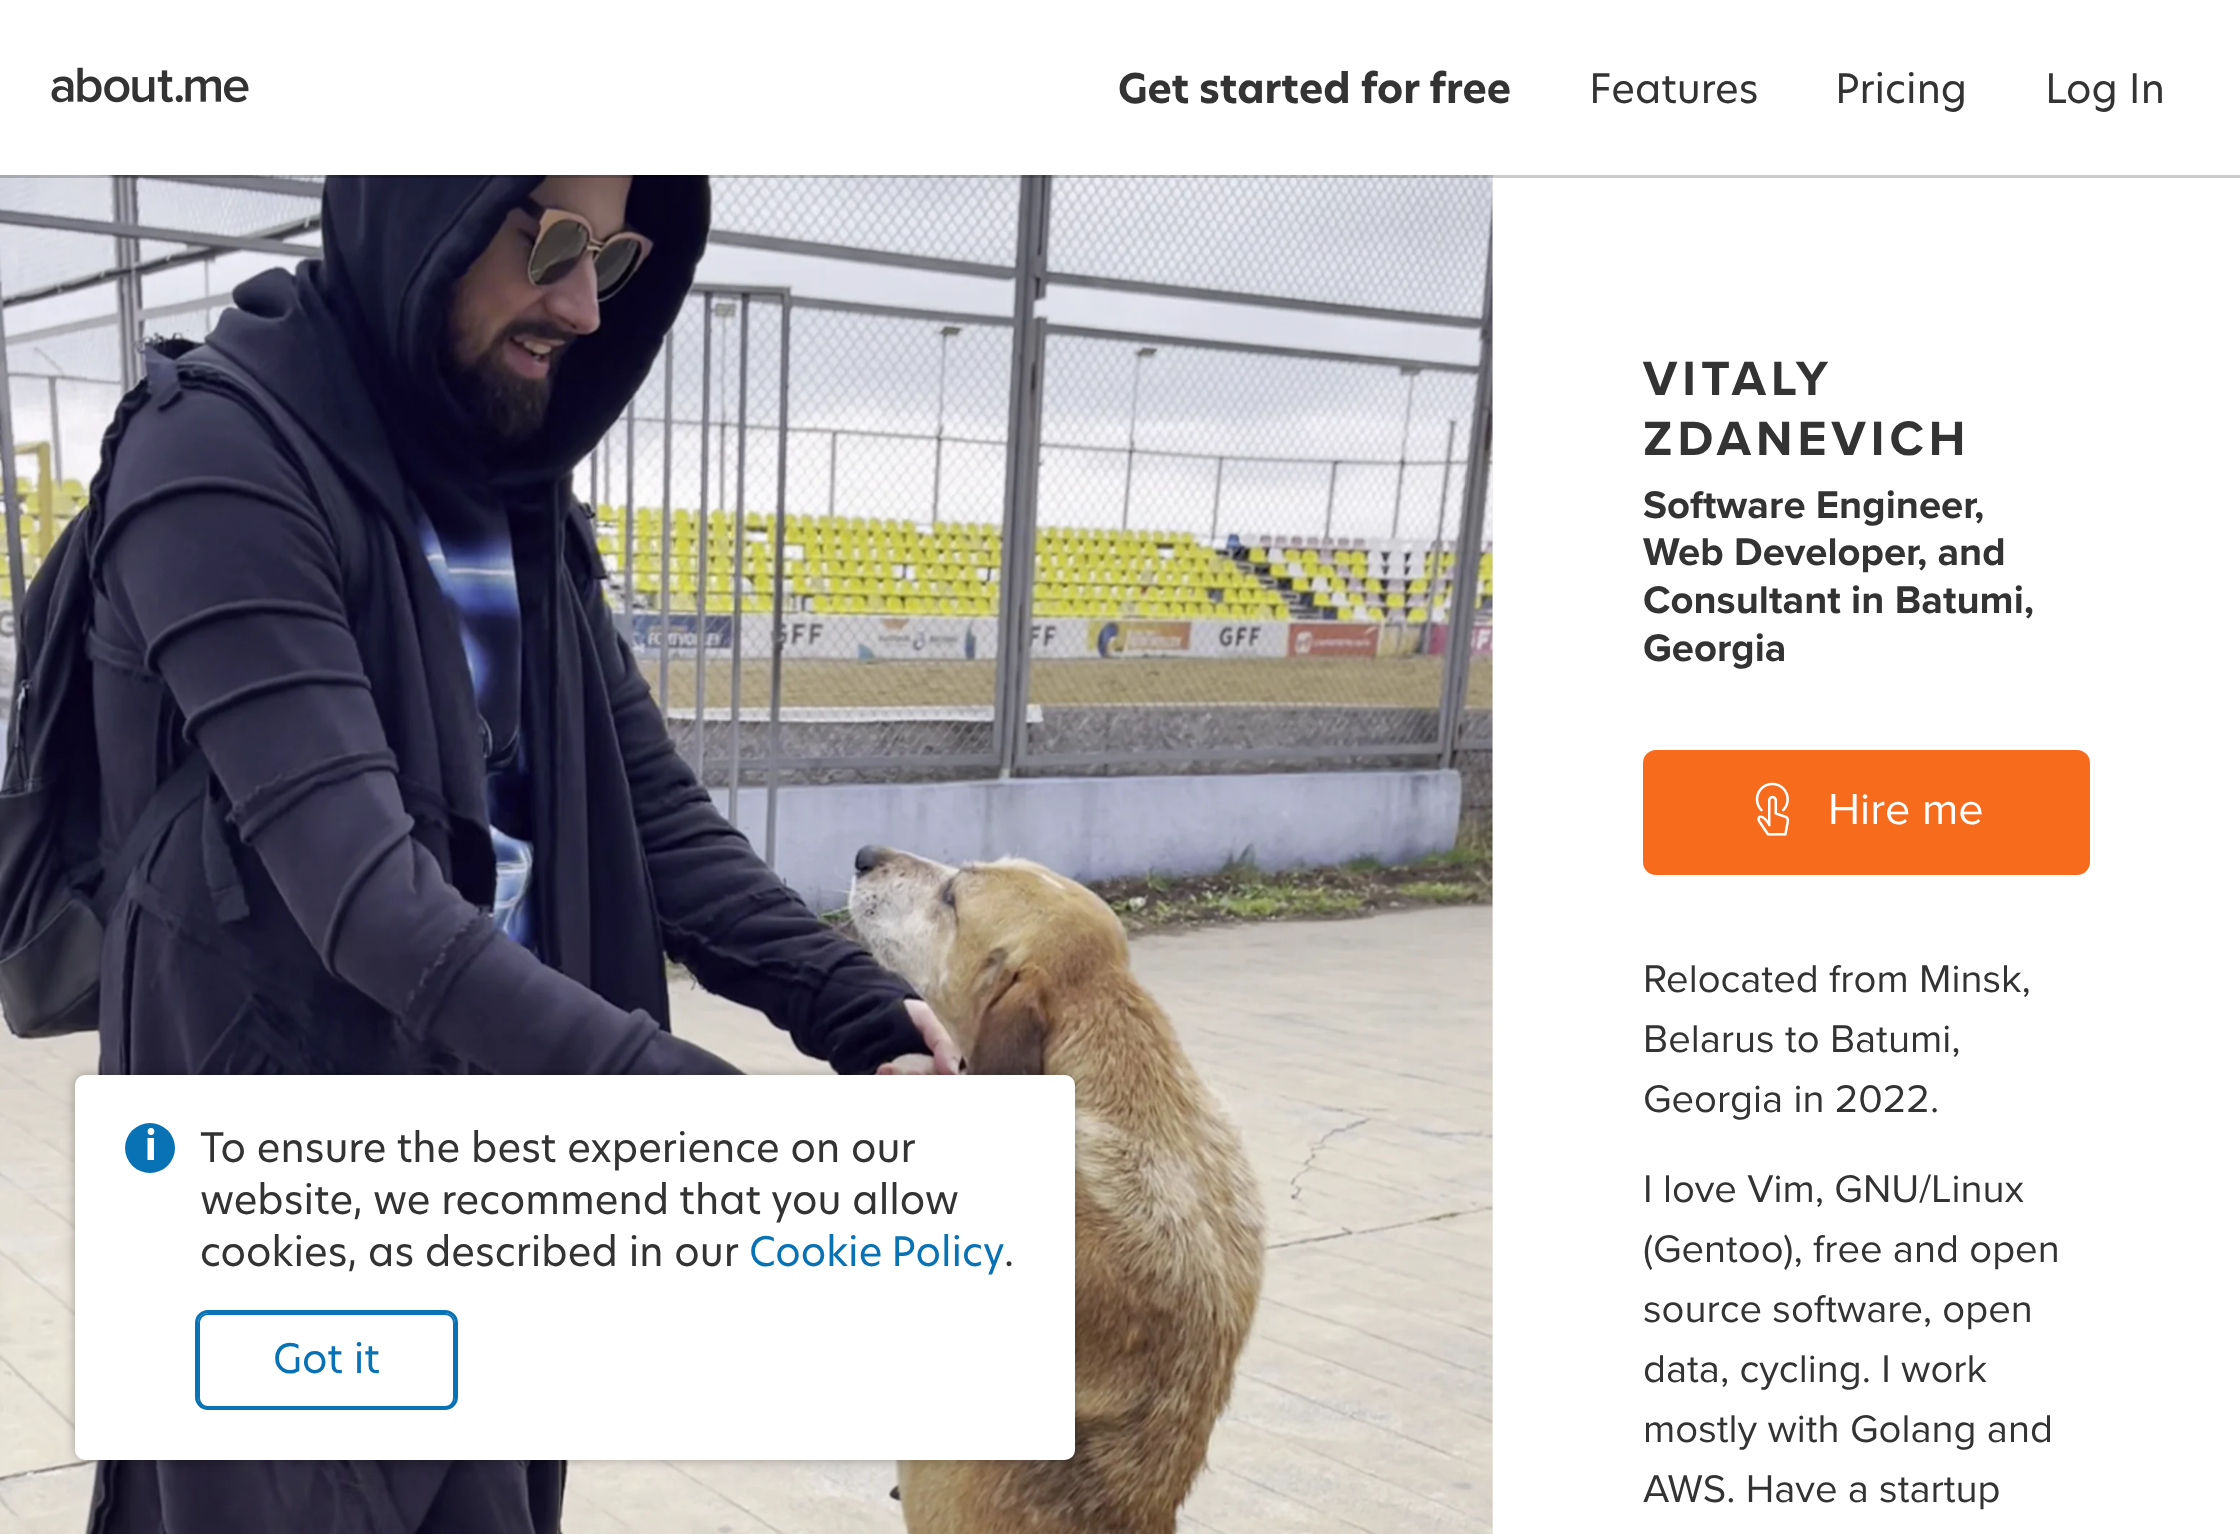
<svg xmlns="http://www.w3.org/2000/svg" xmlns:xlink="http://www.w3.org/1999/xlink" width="2240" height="1534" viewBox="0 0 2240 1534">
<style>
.cls-1{font:40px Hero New;fill:#333333}
.cls-2{font:40px Hero New;fill:#0872b4}
.cls-3{font:bold 40px Hero New;fill:#333333}
.cls-4{font:bold 50px Proxima Nova;letter-spacing:5px;fill:#333333}
.cls-5{font:bold 40px Proxima Nova;fill:#333333}
.cls-6{font:45px Proxima Nova;fill:#ffffff}
.cls-7{font:40px Proxima Nova;fill:#333333}
</style>
<rect width="100%" height="100%" fill="#ffffff"/>
<rect fill="#eeeeee" x="1492" y="175" width="1" height="1359"/>
<image xlink:href="image1.png" x="0" y="175" width="1493" height="1359"/>
<rect fill="#000000" fill-opacity="0.3" filter="blur(6px)" x="75" y="1075" width="1000" height="385" rx="10"/>
<rect fill="#ffffff" x="75" y="1075" width="1000" height="385" rx="10"/>
<circle fill="#0872b4" cx="150" cy="1148" r="25"/>
<path fill="#ffffff" d="M151 1135C146.5 1135 146.5 1128 151 1128C155.5 1128 155.5 1135 151 1135ZM147.5 1160V1138H154V1160Z"/>
<rect fill="none" stroke="#0872b4" stroke-width="2" x="199" y="1314" width="255" height="93" rx="9"/>
<rect fill="none" stroke="#0872b4" stroke-width="3" x="196.5" y="1311.5" width="260" height="97" rx="11.5"/>
<rect fill="#000000" fill-opacity="0.2" x="0" y="175" width="2240" height="3"/>
<image xlink:href="image0.png" x="51" y="67" width="198" height="36"/>
<rect fill="#f76b1d" stroke="#f76b1d" stroke-width="3" x="1644.5" y="751.5" width="444" height="122" rx="11.5"/>
<image xlink:href="image2.png" x="1755" y="782" width="35" height="54"/>
<text class="cls-1"><tspan x="200" y="1162">To ensure the best experience on our</tspan><tspan x="200" y="1214">website, we recommend that you allow</tspan><tspan x="200" y="1266">cookies, as described in our</tspan></text>
<text class="cls-2" x="749" y="1266" word-spacing="-2">Cookie Policy</text>
<text class="cls-1" x="1004" y="1266">.</text>
<text class="cls-2" x="273" y="1373">Got it</text>
<text class="cls-3" x="1118" y="103">Get started for free</text>
<text class="cls-1" x="1589" y="103">Features</text>
<text class="cls-1" x="1835" y="103">Pricing</text>
<text class="cls-1" x="2045" y="103">Log In</text>
<text class="cls-4"><tspan x="1643" y="395">VITALY</tspan><tspan x="1643" y="455">ZDANEVICH</tspan></text>
<text class="cls-5"><tspan x="1643" y="518">Software Engineer,</tspan><tspan x="1643" y="565">Web Developer, and</tspan><tspan x="1643" y="613">Consultant in Batumi,</tspan><tspan x="1643" y="661">Georgia</tspan></text>
<text class="cls-6" x="1828" y="824">Hire me</text>
<text class="cls-7"><tspan x="1643" y="992">Relocated from Minsk,</tspan><tspan x="1643" y="1052">Belarus to Batumi,</tspan><tspan x="1643" y="1112">Georgia in 2022.</tspan></text>
<text class="cls-7"><tspan x="1643" y="1202">I love Vim, GNU/Linux</tspan><tspan x="1643" y="1262">(Gentoo), free and open</tspan><tspan x="1643" y="1322">source software, open</tspan><tspan x="1643" y="1382">data, cycling. I work</tspan><tspan x="1643" y="1442">mostly with Golang and</tspan><tspan x="1643" y="1502">AWS. Have a startup</tspan></text>
</svg>
